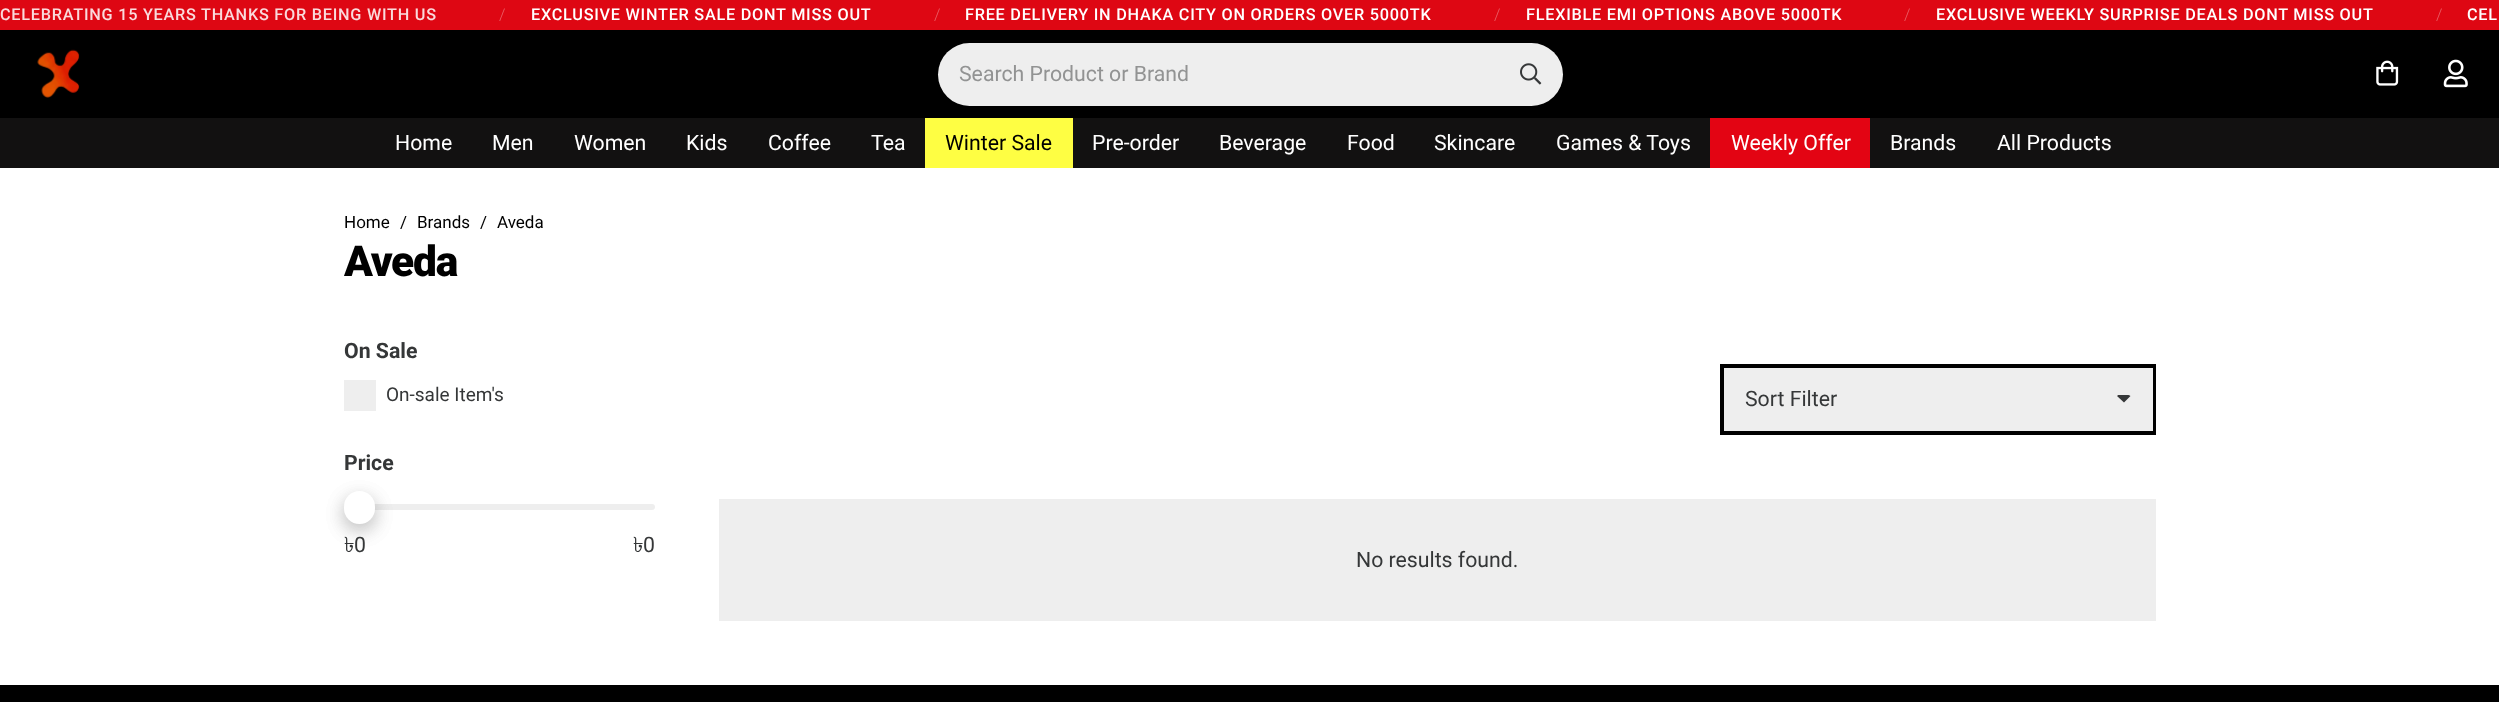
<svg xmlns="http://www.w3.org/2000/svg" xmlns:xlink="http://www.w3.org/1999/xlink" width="2499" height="702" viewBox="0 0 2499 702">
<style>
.cls-1{font:500 16.25px Roboto;letter-spacing:0.75px;fill:#fadadc}
.cls-2{font:300 16.25px Roboto;fill:#ea5e66}
.cls-3{font:500 16.25px Roboto;letter-spacing:0.75px;fill:#ffffff}
.cls-4{font:21.25px Roboto;fill:#929393}
.cls-5{font:21.25px Roboto;fill:#ffffff}
.cls-6{font:21.25px Roboto;fill:#000000}
.cls-7{font:17px Roboto;fill:#000000}
.cls-8{font:900 42.5px Roboto;letter-spacing:-1.25px;fill:#000000}
.cls-9{font:bold 21.25px Roboto;fill:#353738}
.cls-10{font:19px Roboto;fill:#353738}
.cls-11{font:21.25px Lohit Bengali;fill:#353738}
.cls-12{font:21.25px Roboto;fill:#353738}
</style>
<rect width="100%" height="100%" fill="#ffffff"/>
<rect fill="#de0713" x="0" y="0" width="2499" height="30"/>
<rect fill="#000000" x="0" y="30" width="2499" height="88"/>
<image xlink:href="image0.png" x="37" y="49" width="43" height="49"/>
<rect fill="#eeeeee" x="938" y="43" width="625" height="63" rx="31.5"/>
<image xlink:href="image1.png" x="1520" y="63" width="22" height="22"/>
<image xlink:href="image2.png" x="2376" y="60" width="23" height="26"/>
<image xlink:href="image3.png" x="2443" y="59" width="25" height="29"/>
<rect fill="#121111" x="0" y="118" width="2499" height="50"/>
<rect fill="#fefe43" x="925" y="118" width="148" height="50"/>
<rect fill="#e30413" x="1710" y="118" width="160" height="50"/>
<rect fill="#eeeeee" x="344" y="380" width="32" height="31"/>
<rect fill="#eeeeee" x="344" y="504" width="311" height="6" rx="3"/>
<rect fill="#000000" fill-opacity="0.15" filter="blur(9.5px)" x="344" y="498" width="31" height="32" rx="15.5"/>
<rect fill="#000000" fill-opacity="0.15" filter="blur(9.5px)" x="344" y="498" width="31" height="32" rx="15.5"/>
<rect fill="#ffffff" x="344" y="491" width="31" height="33" rx="15.5"/>
<rect fill="none" stroke="#000000" stroke-width="4" x="1722" y="366" width="432" height="67"/>
<rect fill="#eeeeee" x="1724" y="368" width="429" height="63"/>
<path fill="#353738" d="M2119 395C2118 395 2117.5 395.5 2117 396L2124 402.5L2130.5 396C2130 395.5 2129 395 2127 395Z"/>
<rect fill="#eeeeee" x="719" y="499" width="1437" height="122"/>
<rect fill="#000000" x="0" y="685" width="2499" height="17"/>
<text class="cls-1" x="0" y="20">CELEBRATING 15 YEARS THANKS FOR BEING WITH US</text>
<text class="cls-2" x="499" y="20">/</text>
<text class="cls-3" x="531" y="20">EXCLUSIVE WINTER SALE DONT MISS OUT</text>
<text class="cls-2" x="934" y="20">/</text>
<text class="cls-3" x="965" y="20">FREE DELIVERY IN DHAKA CITY ON ORDERS OVER 5000TK</text>
<text class="cls-2" x="1494" y="20">/</text>
<text class="cls-3" x="1526" y="20">FLEXIBLE EMI OPTIONS ABOVE 5000TK</text>
<text class="cls-2" x="1904" y="20">/</text>
<text class="cls-3" x="1936" y="20">EXCLUSIVE WEEKLY SURPRISE DEALS DONT MISS OUT</text>
<text class="cls-2" x="2436" y="20">/</text>
<text class="cls-3" x="2467" y="20">CEL</text>
<text class="cls-4" x="959" y="81">Search Product or Brand</text>
<text class="cls-5" x="395" y="150">Home</text>
<text class="cls-5" x="492" y="150">Men</text>
<text class="cls-5" x="574" y="150">Women</text>
<text class="cls-5" x="686" y="150">Kids</text>
<text class="cls-5" x="768" y="150">Coffee</text>
<text class="cls-5" x="871" y="150">Tea</text>
<text class="cls-6" x="945" y="150">Winter Sale</text>
<text class="cls-5" x="1092" y="150">Pre-order</text>
<text class="cls-5" x="1219" y="150">Beverage</text>
<text class="cls-5" x="1347" y="150">Food</text>
<text class="cls-5" x="1434" y="150">Skincare</text>
<text class="cls-5" x="1556" y="150">Games &amp; Toys</text>
<text class="cls-5" x="1731" y="150">Weekly Offer</text>
<text class="cls-5" x="1890" y="150">Brands</text>
<text class="cls-5" x="1997" y="150">All Products</text>
<text class="cls-7" x="344" y="228">Home</text>
<text class="cls-7" x="400" y="228">/</text>
<text class="cls-7" x="417" y="228">Brands</text>
<text class="cls-7" x="480" y="228">/</text>
<text class="cls-7" x="497" y="228">Aveda</text>
<text class="cls-8" x="344" y="276">Aveda</text>
<text class="cls-9" x="344" y="358">On Sale</text>
<text class="cls-10" x="386" y="401">On-sale Item's</text>
<text class="cls-9" x="344" y="470">Price</text>
<text class="cls-11" x="344" y="552">৳</text>
<text class="cls-12" x="354" y="552">0</text>
<text class="cls-11" x="633" y="552">৳</text>
<text class="cls-12" x="643" y="552">0</text>
<text class="cls-12" x="1745" y="406">Sort Filter</text>
<text class="cls-12" x="1356" y="567">No results found.</text>
</svg>
